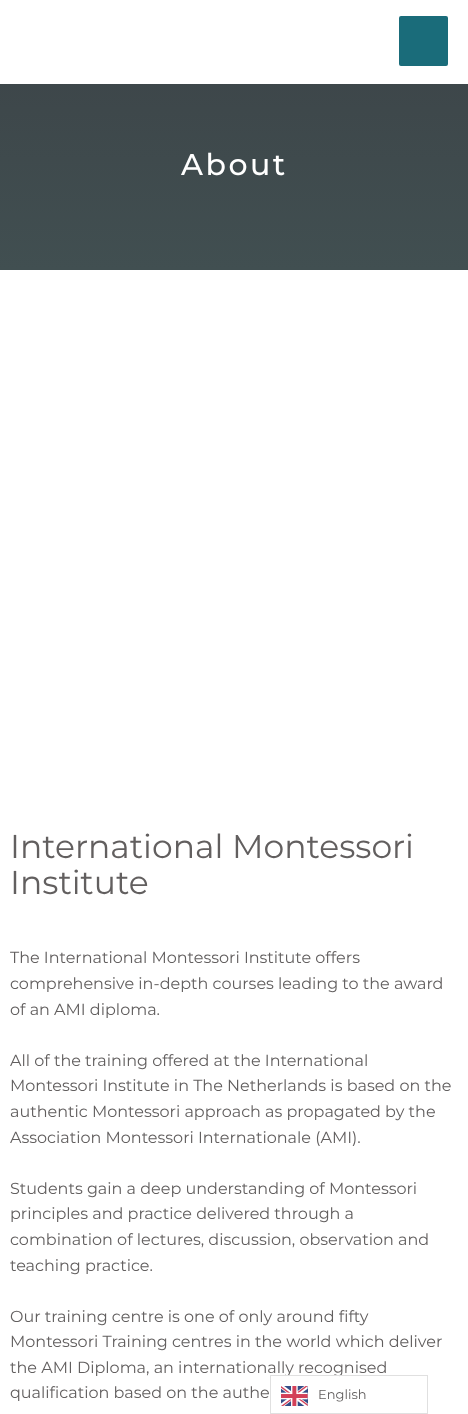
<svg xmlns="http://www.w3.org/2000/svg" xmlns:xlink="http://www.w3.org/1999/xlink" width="468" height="1414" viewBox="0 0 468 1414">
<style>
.cls-1{font:500 30px Montserrat;letter-spacing:2.5px;fill:#ffffff}
.cls-2{font:33px Montserrat;fill:#625f5f}
.cls-3{font:16px Montserrat;fill:#625f5f}
.cls-4{font:13px Montserrat;fill:#625f5f}
</style>
<defs>
<linearGradient id="g1" gradientUnits="userSpaceOnUse" x1="234" y1="0" x2="234" y2="270"><stop offset="0" stop-color="#3c4347"/><stop offset="1" stop-color="#414f51"/></linearGradient>
</defs>
<rect width="100%" height="100%" fill="#ffffff"/>
<rect fill="#1a6c7a" stroke="#1a6c7a" stroke-width="2" x="400" y="17" width="47" height="48" rx="1"/>
<rect fill="url(#g1)" x="0" y="84" width="468" height="186"/>
<text class="cls-1" x="181" y="175">About</text>
<text class="cls-2"><tspan x="10" y="858">International Montessori</tspan><tspan x="10" y="894">Institute</tspan></text>
<text class="cls-3"><tspan x="10" y="963">The International Montessori Institute offers</tspan><tspan x="10" y="989">comprehensive in-depth courses leading to the award</tspan><tspan x="10" y="1015">of an AMI diploma.</tspan></text>
<text class="cls-3"><tspan x="10" y="1066">All of the training offered at the International</tspan><tspan x="10" y="1091">Montessori Institute in The Netherlands is based on the</tspan><tspan x="10" y="1117">authentic Montessori approach as propagated by the</tspan><tspan x="10" y="1143">Association Montessori Internationale (AMI).</tspan></text>
<text class="cls-3"><tspan x="10" y="1194">Students gain a deep understanding of Montessori</tspan><tspan x="10" y="1219">principles and practice delivered through a</tspan><tspan x="10" y="1245">combination of lectures, discussion, observation and</tspan><tspan x="10" y="1271">teaching practice.</tspan></text>
<text class="cls-3"><tspan x="10" y="1322">Our training centre is one of only around fifty</tspan><tspan x="10" y="1347">Montessori Training centres in the world which deliver</tspan><tspan x="10" y="1373">the AMI Diploma, an internationally recognised</tspan><tspan x="10" y="1398">qualification based on the authe</tspan></text>
<rect fill="#ffffff" x="286" y="1376" width="53" height="1"/>
<rect fill="none" stroke="#e0e0e0" x="270.5" y="1375.5" width="157" height="38"/>
<image xlink:href="image0.png" x="281" y="1386" width="27" height="20"/>
<text class="cls-4" x="318" y="1399">English</text>
</svg>
